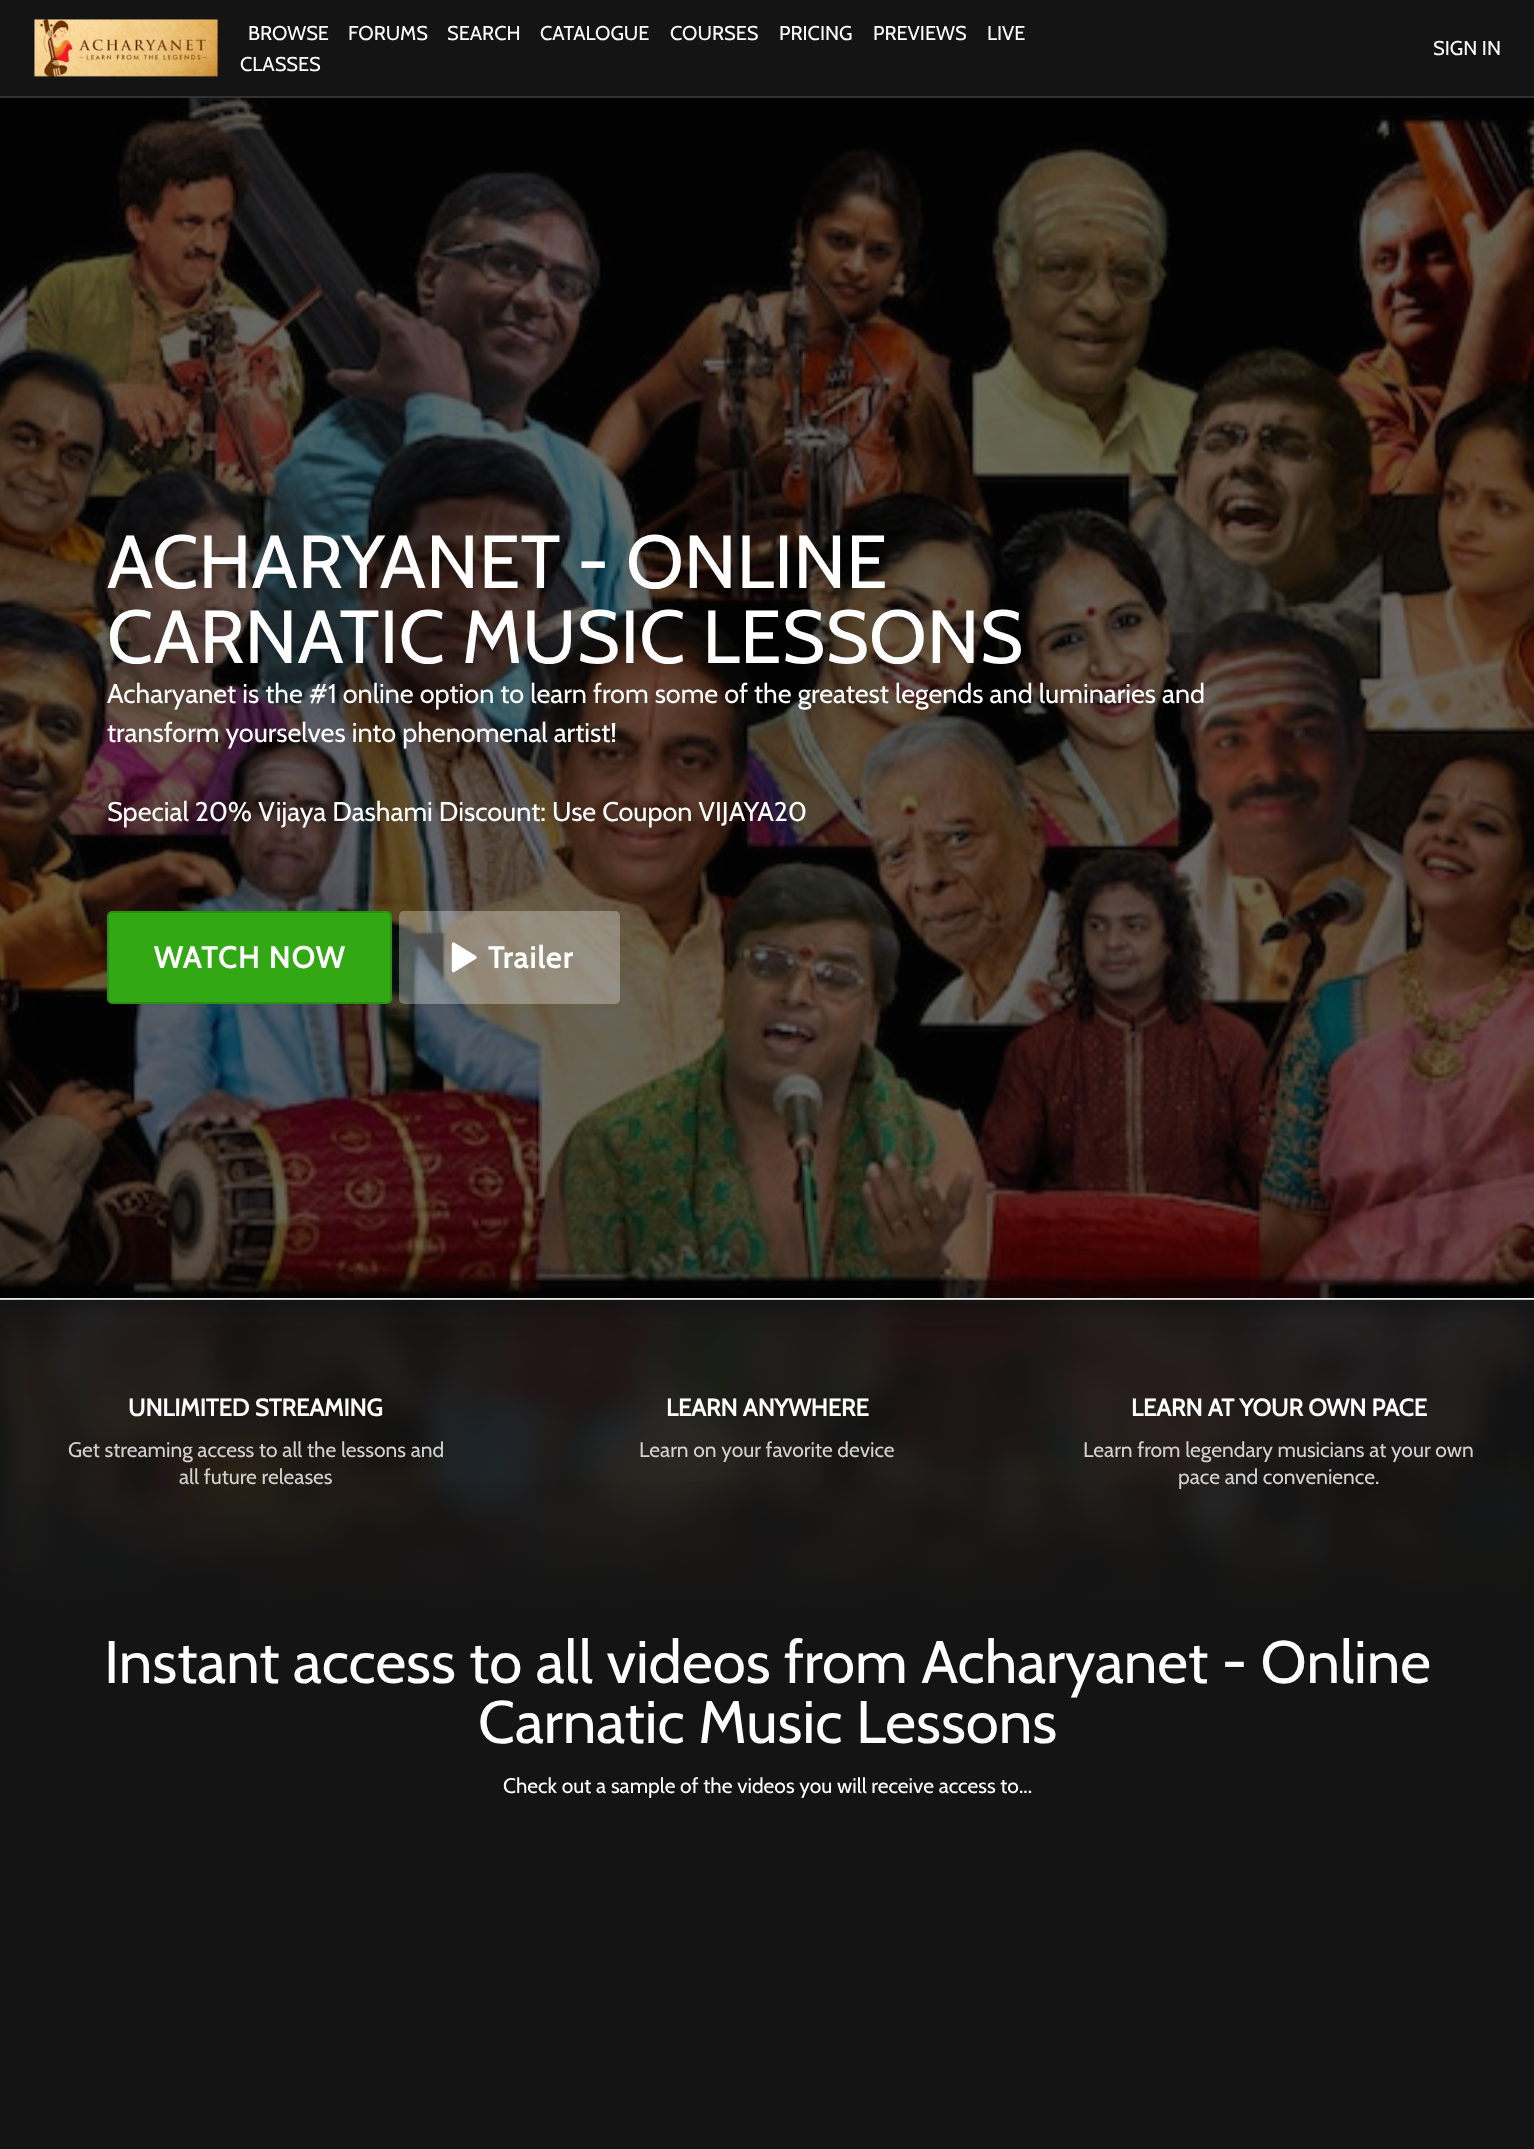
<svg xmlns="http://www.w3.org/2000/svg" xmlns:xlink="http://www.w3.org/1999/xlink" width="1534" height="2149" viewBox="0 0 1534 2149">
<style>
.cls-1{font:20px Cabin;fill:#ffffff}
.cls-2{font:75px Cabin;fill:#ffffff}
.cls-3{font:27px Cabin;fill:#ffffff}
.cls-4{font:bold 30px Cabin;letter-spacing:1.5px;fill:#ffffff}
.cls-5{font:bold 24px Cabin;fill:#ffffff}
.cls-6{font:21px Cabin;fill:#d2d1d0}
.cls-7{font:60px Cabin;fill:#ffffff}
.cls-8{font:21px Cabin;fill:#ffffff}
</style>
<defs>
<linearGradient id="g1" gradientUnits="userSpaceOnUse" x1="767" y1="1464" x2="767" y2="1614"><stop offset="0" stop-color="#141414" stop-opacity="0"/><stop offset="1" stop-color="#141414"/></linearGradient>
</defs>
<rect width="100%" height="100%" fill="#141414"/>
<rect fill="#323232" x="0" y="96" width="1534" height="2"/>
<image xlink:href="image0.png" x="34" y="19" width="184" height="58"/>
<image xlink:href="image1.png" x="0" y="98" width="1534" height="1200"/>
<rect fill="#32a814" stroke="#2b8f11" stroke-width="2" x="108" y="912" width="283" height="91" rx="4"/>
<rect fill="#ffffff" fill-opacity="0.3" x="399" y="911" width="221" height="93" rx="5"/>
<image xlink:href="image2.png" x="451" y="942" width="26" height="31"/>
<rect fill="#e3e8e9" x="0" y="1298" width="1534" height="1"/>
<rect fill="#cdd1d2" x="0" y="1299" width="1534" height="1"/>
<image xlink:href="image3.png" x="0" y="1299" width="1534" height="314"/>
<rect fill="url(#g1)" x="0" y="1481" width="1532" height="132"/>
<text class="cls-1" x="248" y="40">BROWSE</text>
<text class="cls-1" x="348" y="40">FORUMS</text>
<text class="cls-1" x="447" y="40">SEARCH</text>
<text class="cls-1" x="540" y="40">CATALOGUE</text>
<text class="cls-1" x="670" y="40">COURSES</text>
<text class="cls-1" x="779" y="40">PRICING</text>
<text class="cls-1" x="873" y="40">PREVIEWS</text>
<text class="cls-1" x="987" y="40">LIVE</text>
<text class="cls-1" x="240" y="71">CLASSES</text>
<text class="cls-1" x="1433" y="55">SIGN IN</text>
<text class="cls-2"><tspan x="107" y="588">ACHARYANET - ONLINE</tspan><tspan x="107" y="663">CARNATIC MUSIC LESSONS</tspan></text>
<text class="cls-3"><tspan x="107" y="703">Acharyanet is the #1 online option to learn from some of the greatest legends and luminaries and</tspan><tspan x="107" y="742">transform yourselves into phenomenal artist!</tspan></text>
<text class="cls-3" x="107" y="821">Special 20% Vijaya Dashami Discount: Use Coupon VIJAYA20</text>
<text class="cls-4" x="154" y="968">WATCH NOW</text>
<text class="cls-4" x="488" y="968">Trailer</text>
<text class="cls-5" x="128" y="1416">UNLIMITED STREAMING</text>
<text class="cls-6" x="68" y="1457">Get streaming access to all the lessons and</text>
<text class="cls-6" x="179" y="1484">all future releases</text>
<text class="cls-5" x="666" y="1416">LEARN ANYWHERE</text>
<text class="cls-6" x="639" y="1457">Learn on your favorite device</text>
<text class="cls-5" x="1131" y="1416">LEARN AT YOUR OWN PACE</text>
<text class="cls-6" x="1083" y="1457">Learn from legendary musicians at your own</text>
<text class="cls-6" x="1178" y="1484">pace and convenience.</text>
<text class="cls-7" x="104" y="1683">Instant access to all videos from Acharyanet - Online</text>
<text class="cls-7" x="478" y="1743">Carnatic Music Lessons</text>
<text class="cls-8" x="503" y="1793">Check out a sample of the videos you will receive access to...</text>
</svg>
